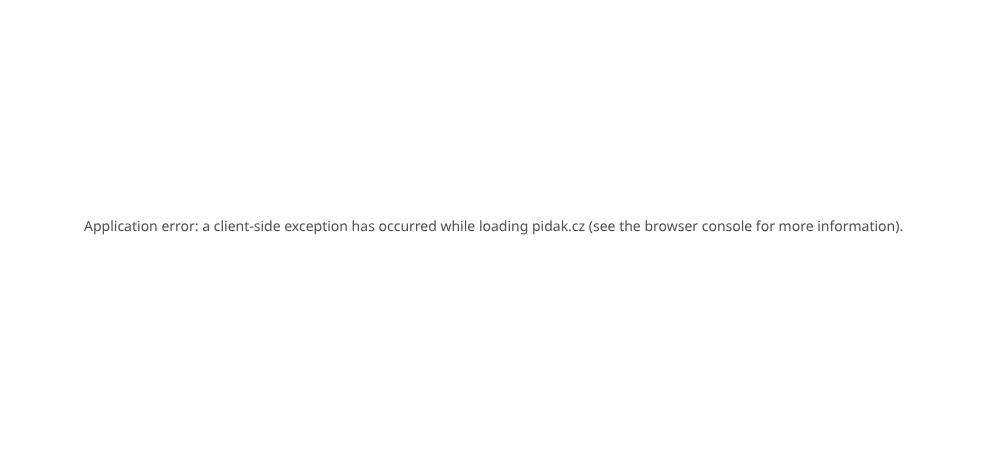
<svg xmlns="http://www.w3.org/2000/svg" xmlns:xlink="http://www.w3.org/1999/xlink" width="987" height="451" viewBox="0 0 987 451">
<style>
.cls-1{font:14px Noto Sans;fill:#505050}
</style>
<rect width="100%" height="100%" fill="#ffffff"/>
<text class="cls-1" x="84" y="231">Application error: a client-side exception has occurred while loading pidak.cz (see the browser console for more information).</text>
</svg>
